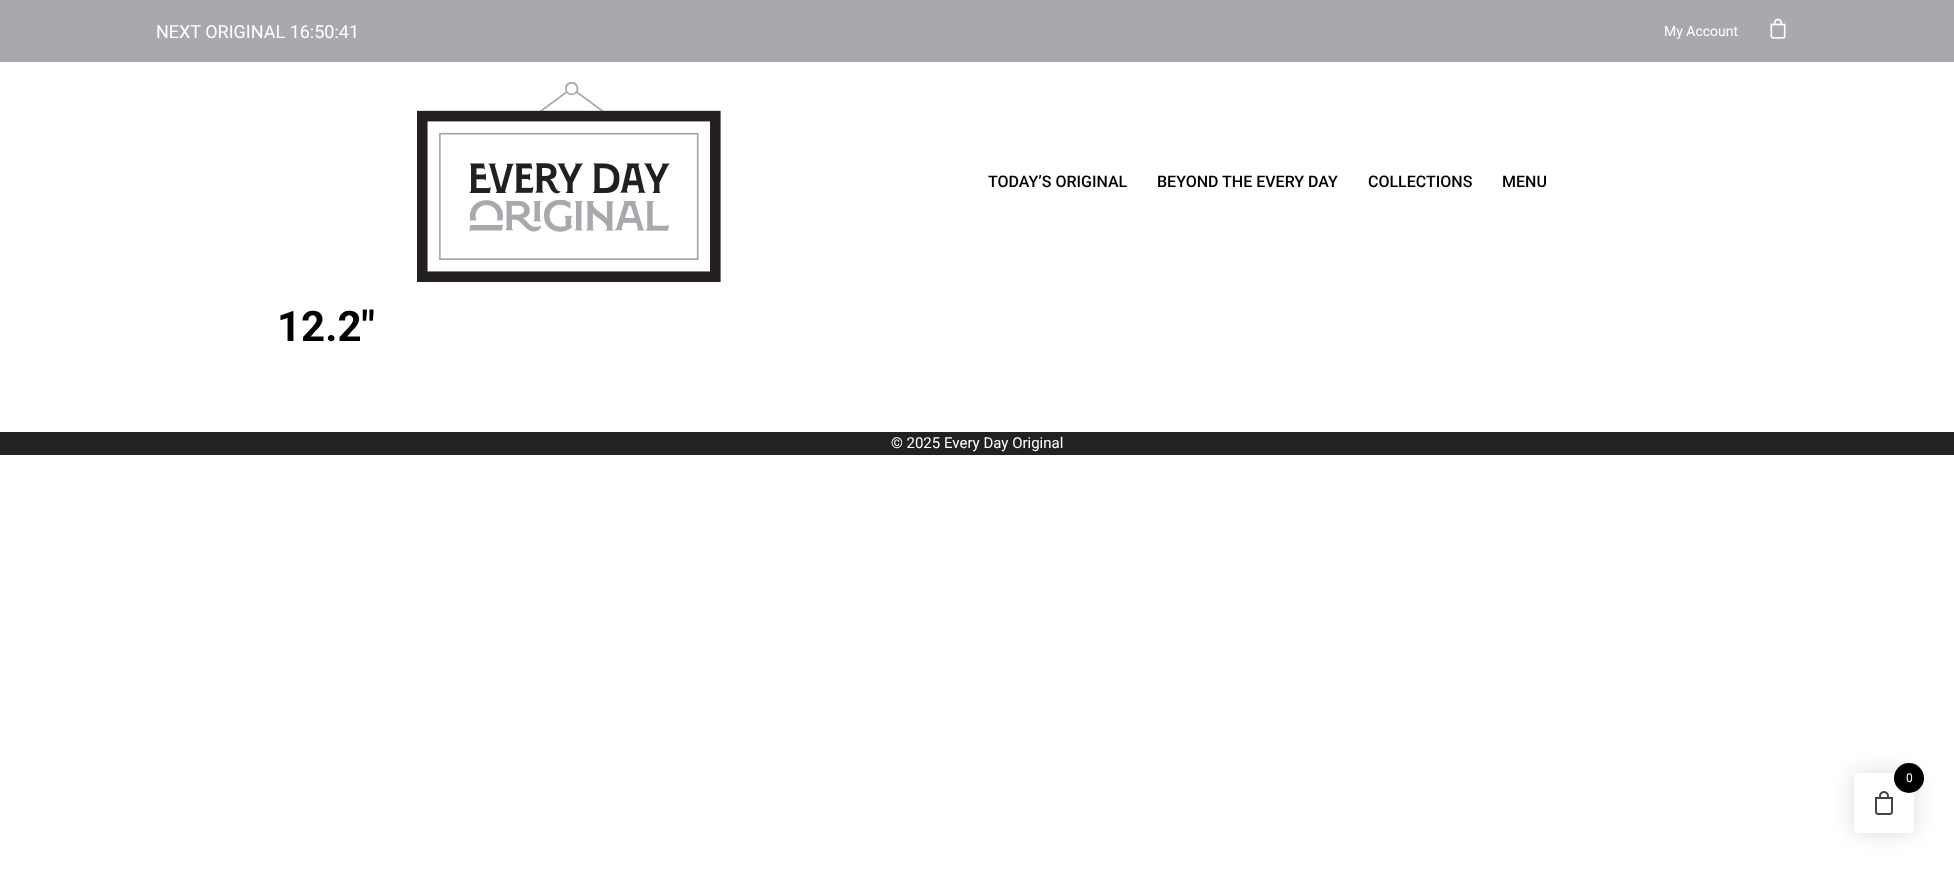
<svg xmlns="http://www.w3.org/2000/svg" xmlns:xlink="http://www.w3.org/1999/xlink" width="1954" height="873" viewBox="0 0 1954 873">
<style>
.cls-1{font:18px Roboto;fill:#ffffff}
.cls-2{font:14px Roboto;fill:#ffffff}
.cls-3{font:500 16px Roboto;fill:#000000}
.cls-4{font:bold 42px Roboto;fill:#000000}
.cls-5{font:15px Roboto;fill:#ffffff}
.cls-6{font:12px Roboto;fill:#ffffff}
</style>
<rect width="100%" height="100%" fill="#ffffff"/>
<rect fill="#a7a9ac" x="0" y="0" width="1954" height="62"/>
<image xlink:href="image0.png" x="1770" y="18" width="16" height="21"/>
<image xlink:href="image1.png" x="417" y="82" width="304" height="200"/>
<rect fill="#222222" x="0" y="432" width="1954" height="23"/>
<rect fill="#000000" fill-opacity="0.15" filter="blur(10px)" x="1854" y="773" width="60" height="60" rx="4"/>
<rect fill="#ffffff" x="1854" y="773" width="60" height="60" rx="4"/>
<circle fill="#000000" cx="1909" cy="778" r="15"/>
<image xlink:href="image2.png" x="1875" y="791" width="18" height="24"/>
<text class="cls-1" x="156" y="38">NEXT ORIGINAL 16:50:41</text>
<text class="cls-2" x="1664" y="36">My Account</text>
<text class="cls-3" x="988" y="187">TODAY’S ORIGINAL</text>
<text class="cls-3" x="1157" y="187">BEYOND THE EVERY DAY</text>
<text class="cls-3" x="1368" y="187">COLLECTIONS</text>
<text class="cls-3" x="1502" y="187">MENU</text>
<text class="cls-4" x="277" y="341">12.2"</text>
<text class="cls-5" x="891" y="448">© 2025 Every Day Original</text>
<text class="cls-6" x="1906" y="782">0</text>
</svg>
